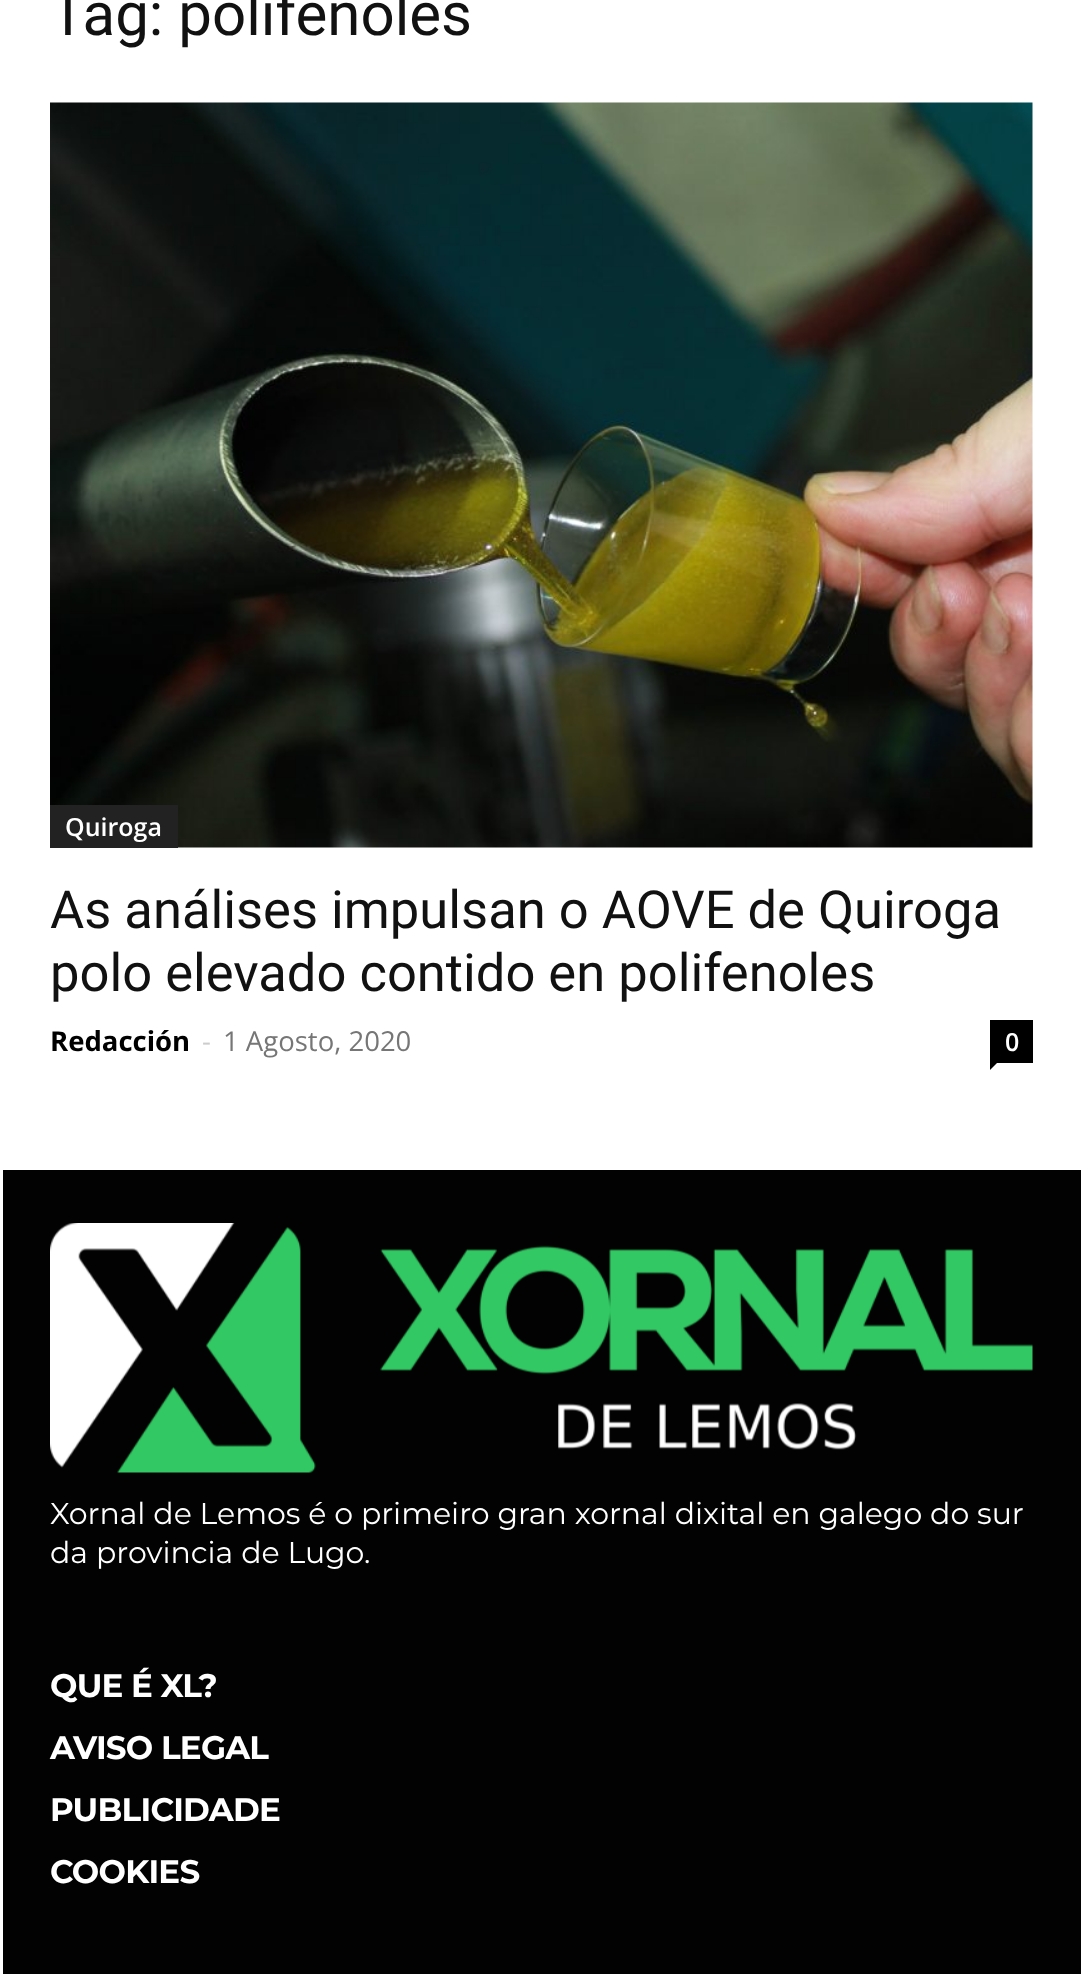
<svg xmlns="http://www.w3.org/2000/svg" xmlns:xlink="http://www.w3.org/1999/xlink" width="1081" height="1974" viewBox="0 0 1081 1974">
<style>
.cls-1{font:60px Roboto;fill:#111111}
.cls-2{font:600 25px Open Sans;fill:#ffffff}
.cls-3{font:52.5px Roboto;fill:#111111}
.cls-4{font:bold 27.5px Open Sans;fill:#000000}
.cls-5{font:27.5px Open Sans;fill:#cccccc}
.cls-6{font:27.5px Open Sans;fill:#767676}
.cls-7{font:30px Montserrat;fill:#ffffff}
.cls-8{font:bold 32.5px Montserrat;letter-spacing:-0.75px;fill:#ffffff}
</style>
<rect width="100%" height="100%" fill="#ffffff"/>
<image xlink:href="image0.png" x="50" y="102" width="983" height="746"/>
<rect fill="#222222" x="50" y="805" width="128" height="43"/>
<rect fill="#000000" x="990" y="1020" width="43" height="43"/>
<path fill="#000000" d="M990 1062.5H997.5L990 1070Z"/>
<rect fill="#020202" x="3" y="1170" width="1078" height="804"/>
<image xlink:href="image1.png" x="50" y="1223" width="983" height="250"/>
<text class="cls-1" x="50" y="35">Tag: polifenoles</text>
<text class="cls-2" x="65" y="836">Quiroga</text>
<text class="cls-3"><tspan x="50" y="928">As análises impulsan o AOVE de Quiroga</tspan><tspan x="50" y="991">polo elevado contido en polifenoles</tspan></text>
<text class="cls-4" x="50" y="1051">Redacción</text>
<text class="cls-5" x="202" y="1051">-</text>
<text class="cls-6" x="223" y="1051">1 Agosto, 2020</text>
<text class="cls-2" x="1005" y="1051">0</text>
<text class="cls-7"><tspan x="50" y="1524">Xornal de Lemos é o primeiro gran xornal dixital en galego do sur</tspan><tspan x="50" y="1563">da provincia de Lugo.</tspan></text>
<text class="cls-8"><tspan x="50" y="1697">QUE É XL?</tspan><tspan x="50" y="1759">AVISO LEGAL</tspan><tspan x="50" y="1821">PUBLICIDADE</tspan><tspan x="50" y="1883">COOKIES</tspan></text>
</svg>
